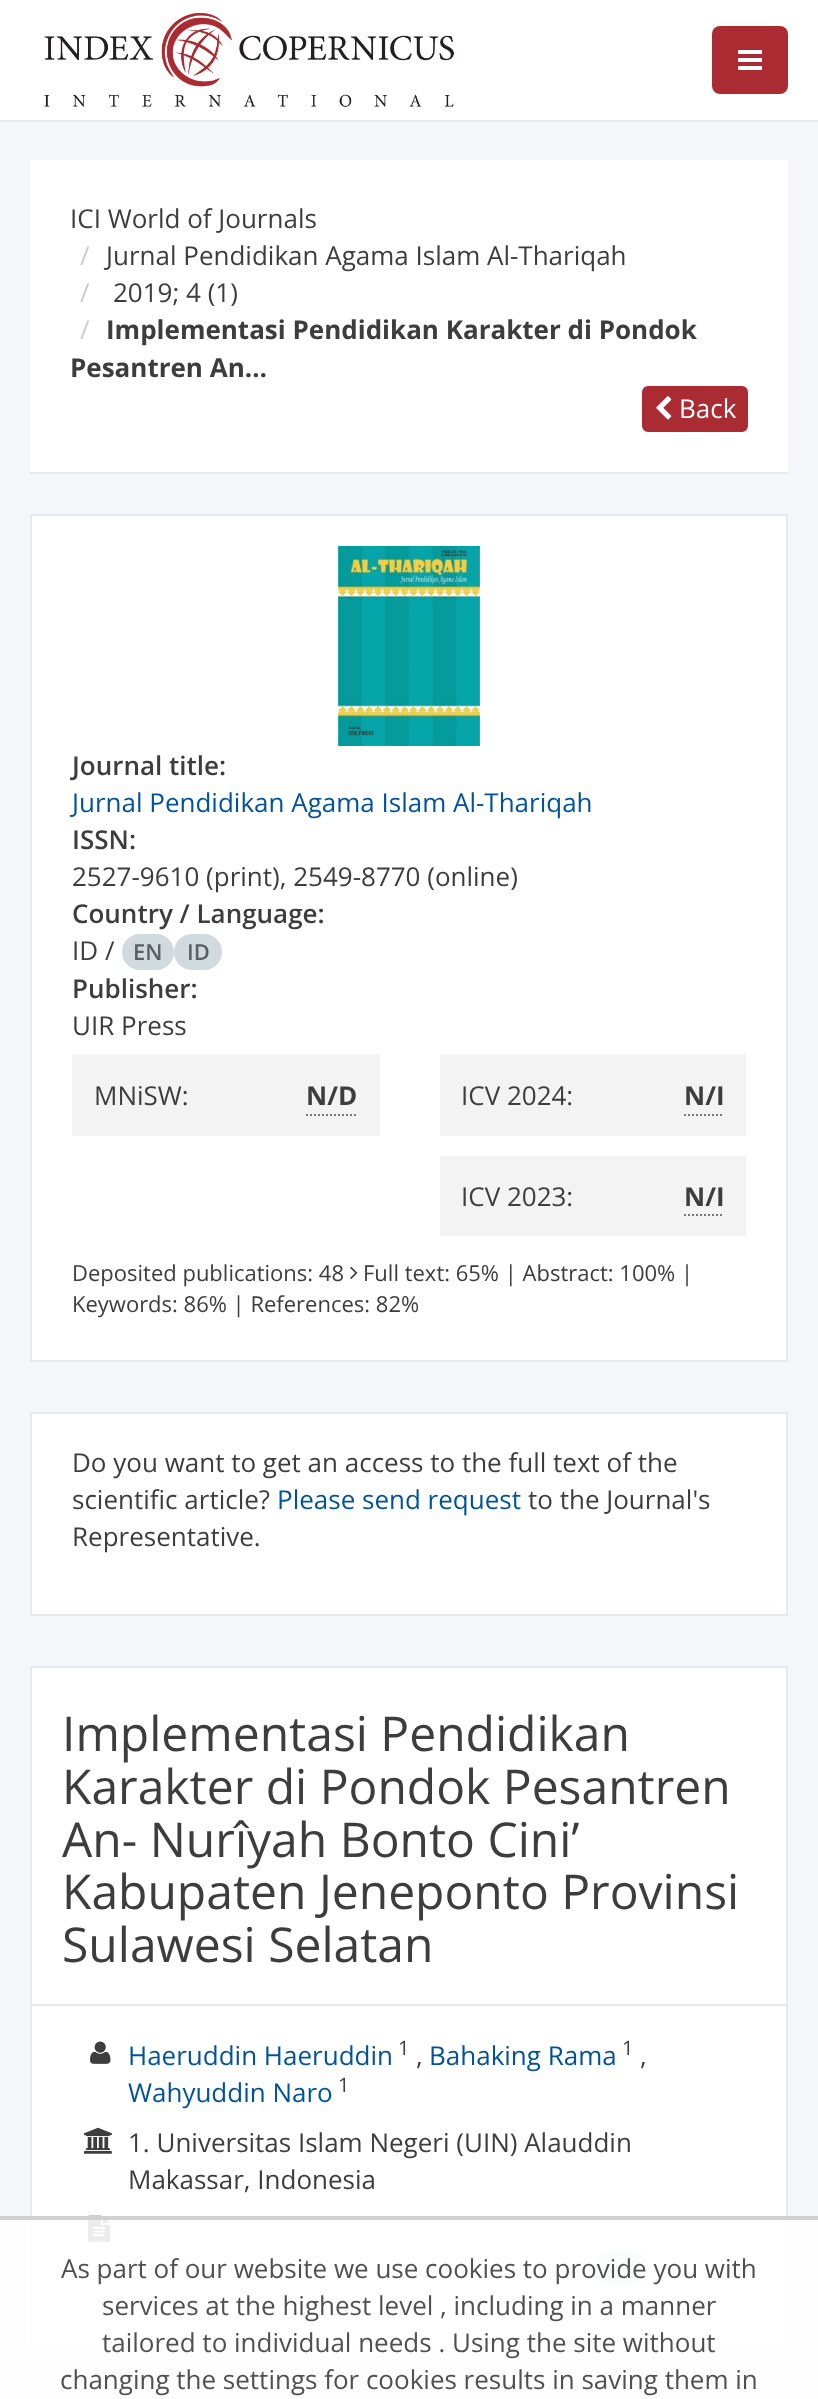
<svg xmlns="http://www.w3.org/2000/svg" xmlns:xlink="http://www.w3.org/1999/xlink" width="818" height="2399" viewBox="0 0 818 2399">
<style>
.cls-1{font:26px Open Sans;fill:#3d3d3d}
.cls-2{font:26px Open Sans;fill:#cccccc}
.cls-3{font:bold 26px Open Sans;fill:#3d3d3d}
.cls-4{font:26px Open Sans;fill:#ffffff}
.cls-5{font:600 26px Open Sans;fill:#3d3d3d}
.cls-6{font:26px Open Sans;fill:#00539b}
.cls-7{font:600 22px Open Sans;fill:#5e5e5e}
.cls-8{font:22px Open Sans;fill:#3d3d3d}
.cls-9{font:48px Open Sans;fill:#3d3d3d}
.cls-10{font:20px Open Sans;fill:#3d3d3d}
.cls-11{font:26px Open Sans;fill:#505050}
</style>
<rect width="100%" height="100%" fill="#f4f6fa"/>
<rect fill="#ffffff" x="0" y="0" width="818" height="120"/>
<rect fill="#e7eaec" x="0" y="120" width="818" height="2"/>
<image xlink:href="image0.png" x="44" y="13" width="410" height="94"/>
<rect fill="#aa2b31" x="712" y="26" width="76" height="68" rx="8"/>
<image xlink:href="image1.png" x="738" y="50" width="24" height="20"/>
<rect fill="#ffffff" x="30" y="160" width="758" height="312"/>
<rect fill="#e7eaec" x="30" y="472" width="758" height="2"/>
<rect fill="#aa2b31" stroke="#aa2b31" stroke-width="2" x="643" y="387" width="104" height="44" rx="5"/>
<image xlink:href="image2.png" x="656" y="396" width="16" height="24"/>
<rect fill="#ffffff" stroke="#e7eaec" stroke-width="2" x="31" y="515" width="756" height="846"/>
<image xlink:href="image3.png" x="338" y="546" width="142" height="200"/>
<rect fill="#d1dade" x="122" y="934" width="52" height="36" rx="18"/>
<rect fill="#d1dade" x="174" y="934" width="48" height="36" rx="18"/>
<rect fill="#f3f3f4" x="72" y="1054" width="308" height="82"/>
<path fill="none" stroke="#777777" stroke-width="2" stroke-dasharray="2 2" d="M306 1115H358"/>
<rect fill="#f3f3f4" x="440" y="1054" width="306" height="82"/>
<path fill="none" stroke="#777777" stroke-width="2" stroke-dasharray="2 2" d="M684 1115H724"/>
<rect fill="#f3f3f4" x="440" y="1156" width="306" height="80"/>
<path fill="none" stroke="#777777" stroke-width="2" stroke-dasharray="2 2" d="M684 1215H724"/>
<image xlink:href="image4.png" x="350" y="1266" width="8" height="13"/>
<rect fill="#ffffff" stroke="#e7eaec" stroke-width="2" x="31" y="1413" width="756" height="202"/>
<rect fill="#ffffff" x="32" y="1668" width="754" height="336"/>
<rect fill="#e7eaec" x="30" y="1666" width="758" height="2"/>
<rect fill="#e7eaec" x="786" y="1666" width="2" height="338"/>
<rect fill="#e7eaec" x="30" y="1666" width="2" height="338"/>
<rect fill="#ffffff" stroke="#e7eaec" stroke-width="2" x="31" y="2005" width="756" height="342"/>
<image xlink:href="image5.png" x="90" y="2041" width="21" height="23"/>
<image xlink:href="image6.png" x="84" y="2127" width="28" height="27"/>
<image xlink:href="image7.png" x="88" y="2215" width="23" height="27"/>
<rect fill="#d1dade" x="594" y="2250" width="54" height="36" rx="18"/>
<rect fill="#e7eaec" x="30" y="2398" width="758" height="1"/>
<rect fill="#ffffff" fill-opacity="0.9" x="0" y="2216" width="818" height="183"/>
<rect fill="#cccccc" fill-opacity="0.9" x="0" y="2216" width="818" height="4"/>
<text class="cls-1" x="70" y="228">ICI World of Journals</text>
<text class="cls-2" x="80" y="265">/</text>
<text class="cls-1" x="106" y="265">Jurnal Pendidikan Agama Islam Al-Thariqah</text>
<text class="cls-2" x="80" y="302">/</text>
<text class="cls-1" x="113" y="302">2019; 4 (1)</text>
<text class="cls-2" x="80" y="339">/</text>
<text class="cls-3" x="106" y="339">Implementasi Pendidikan Karakter di Pondok</text>
<text class="cls-3" x="70" y="377">Pesantren An…</text>
<text class="cls-4" x="679" y="418">Back</text>
<text class="cls-5" x="72" y="775">Journal title:</text>
<text class="cls-6" x="72" y="812">Jurnal Pendidikan Agama Islam Al-Thariqah</text>
<text class="cls-5" x="72" y="849">ISSN:</text>
<text class="cls-1" x="72" y="886">2527-9610 (print), 2549-8770 (online)</text>
<text class="cls-5" x="72" y="923">Country / Language:</text>
<text class="cls-1" x="72" y="960">ID /</text>
<text class="cls-7" x="133" y="960">EN</text>
<text class="cls-7" x="187" y="960">ID</text>
<text class="cls-5" x="72" y="998">Publisher:</text>
<text class="cls-1" x="72" y="1035">UIR Press</text>
<text class="cls-1" x="94" y="1105">MNiSW:</text>
<text class="cls-3" x="306" y="1105">N/D</text>
<text class="cls-1" x="461" y="1105">ICV 2024:</text>
<text class="cls-3" x="684" y="1105">N/I</text>
<text class="cls-1" x="461" y="1206">ICV 2023:</text>
<text class="cls-3" x="684" y="1206">N/I</text>
<text class="cls-8" x="72" y="1281">Deposited publications: 48</text>
<text class="cls-8" x="363" y="1281">Full text: 65% | Abstract: 100% |</text>
<text class="cls-8" x="72" y="1312">Keywords: 86% | References: 82%</text>
<text class="cls-1"><tspan x="72" y="1472">Do you want to get an access to the full text of the</tspan><tspan x="72" y="1509">scientific article?</tspan></text>
<text class="cls-6" x="277" y="1509">Please send request</text>
<text class="cls-1" x="528" y="1509">to the Journal's</text>
<text class="cls-1" x="72" y="1546">Representative.</text>
<text class="cls-9"><tspan x="62" y="1751">Implementasi Pendidikan</tspan><tspan x="62" y="1804">Karakter di Pondok Pesantren</tspan><tspan x="62" y="1857">An- Nurîyah Bonto Cini’</tspan><tspan x="62" y="1909">Kabupaten Jeneponto Provinsi</tspan><tspan x="62" y="1962">Sulawesi Selatan</tspan></text>
<text class="cls-6" x="128" y="2065">Haeruddin Haeruddin</text>
<text class="cls-10" x="398" y="2055">1</text>
<text class="cls-1" x="416" y="2065">,</text>
<text class="cls-6" x="429" y="2065">Bahaking Rama</text>
<text class="cls-10" x="622" y="2055">1</text>
<text class="cls-1" x="640" y="2065">,</text>
<text class="cls-6" x="128" y="2102">Wahyuddin Naro</text>
<text class="cls-10" x="338" y="2092">1</text>
<text class="cls-1"><tspan x="128" y="2152">1. Universitas Islam Negeri (UIN) Alauddin</tspan><tspan x="128" y="2189">Makassar, Indonesia</tspan></text>
<text class="cls-11" x="61" y="2278">As part of our website we use cookies to provide you with</text>
<text class="cls-11"><tspan x="102" y="2315">services at the highest level , including in a manner</tspan><tspan x="102" y="2352">tailored to individual needs . Using the site without</tspan></text>
<text class="cls-11" x="60" y="2389">changing the settings for cookies results in saving them in</text>
</svg>
